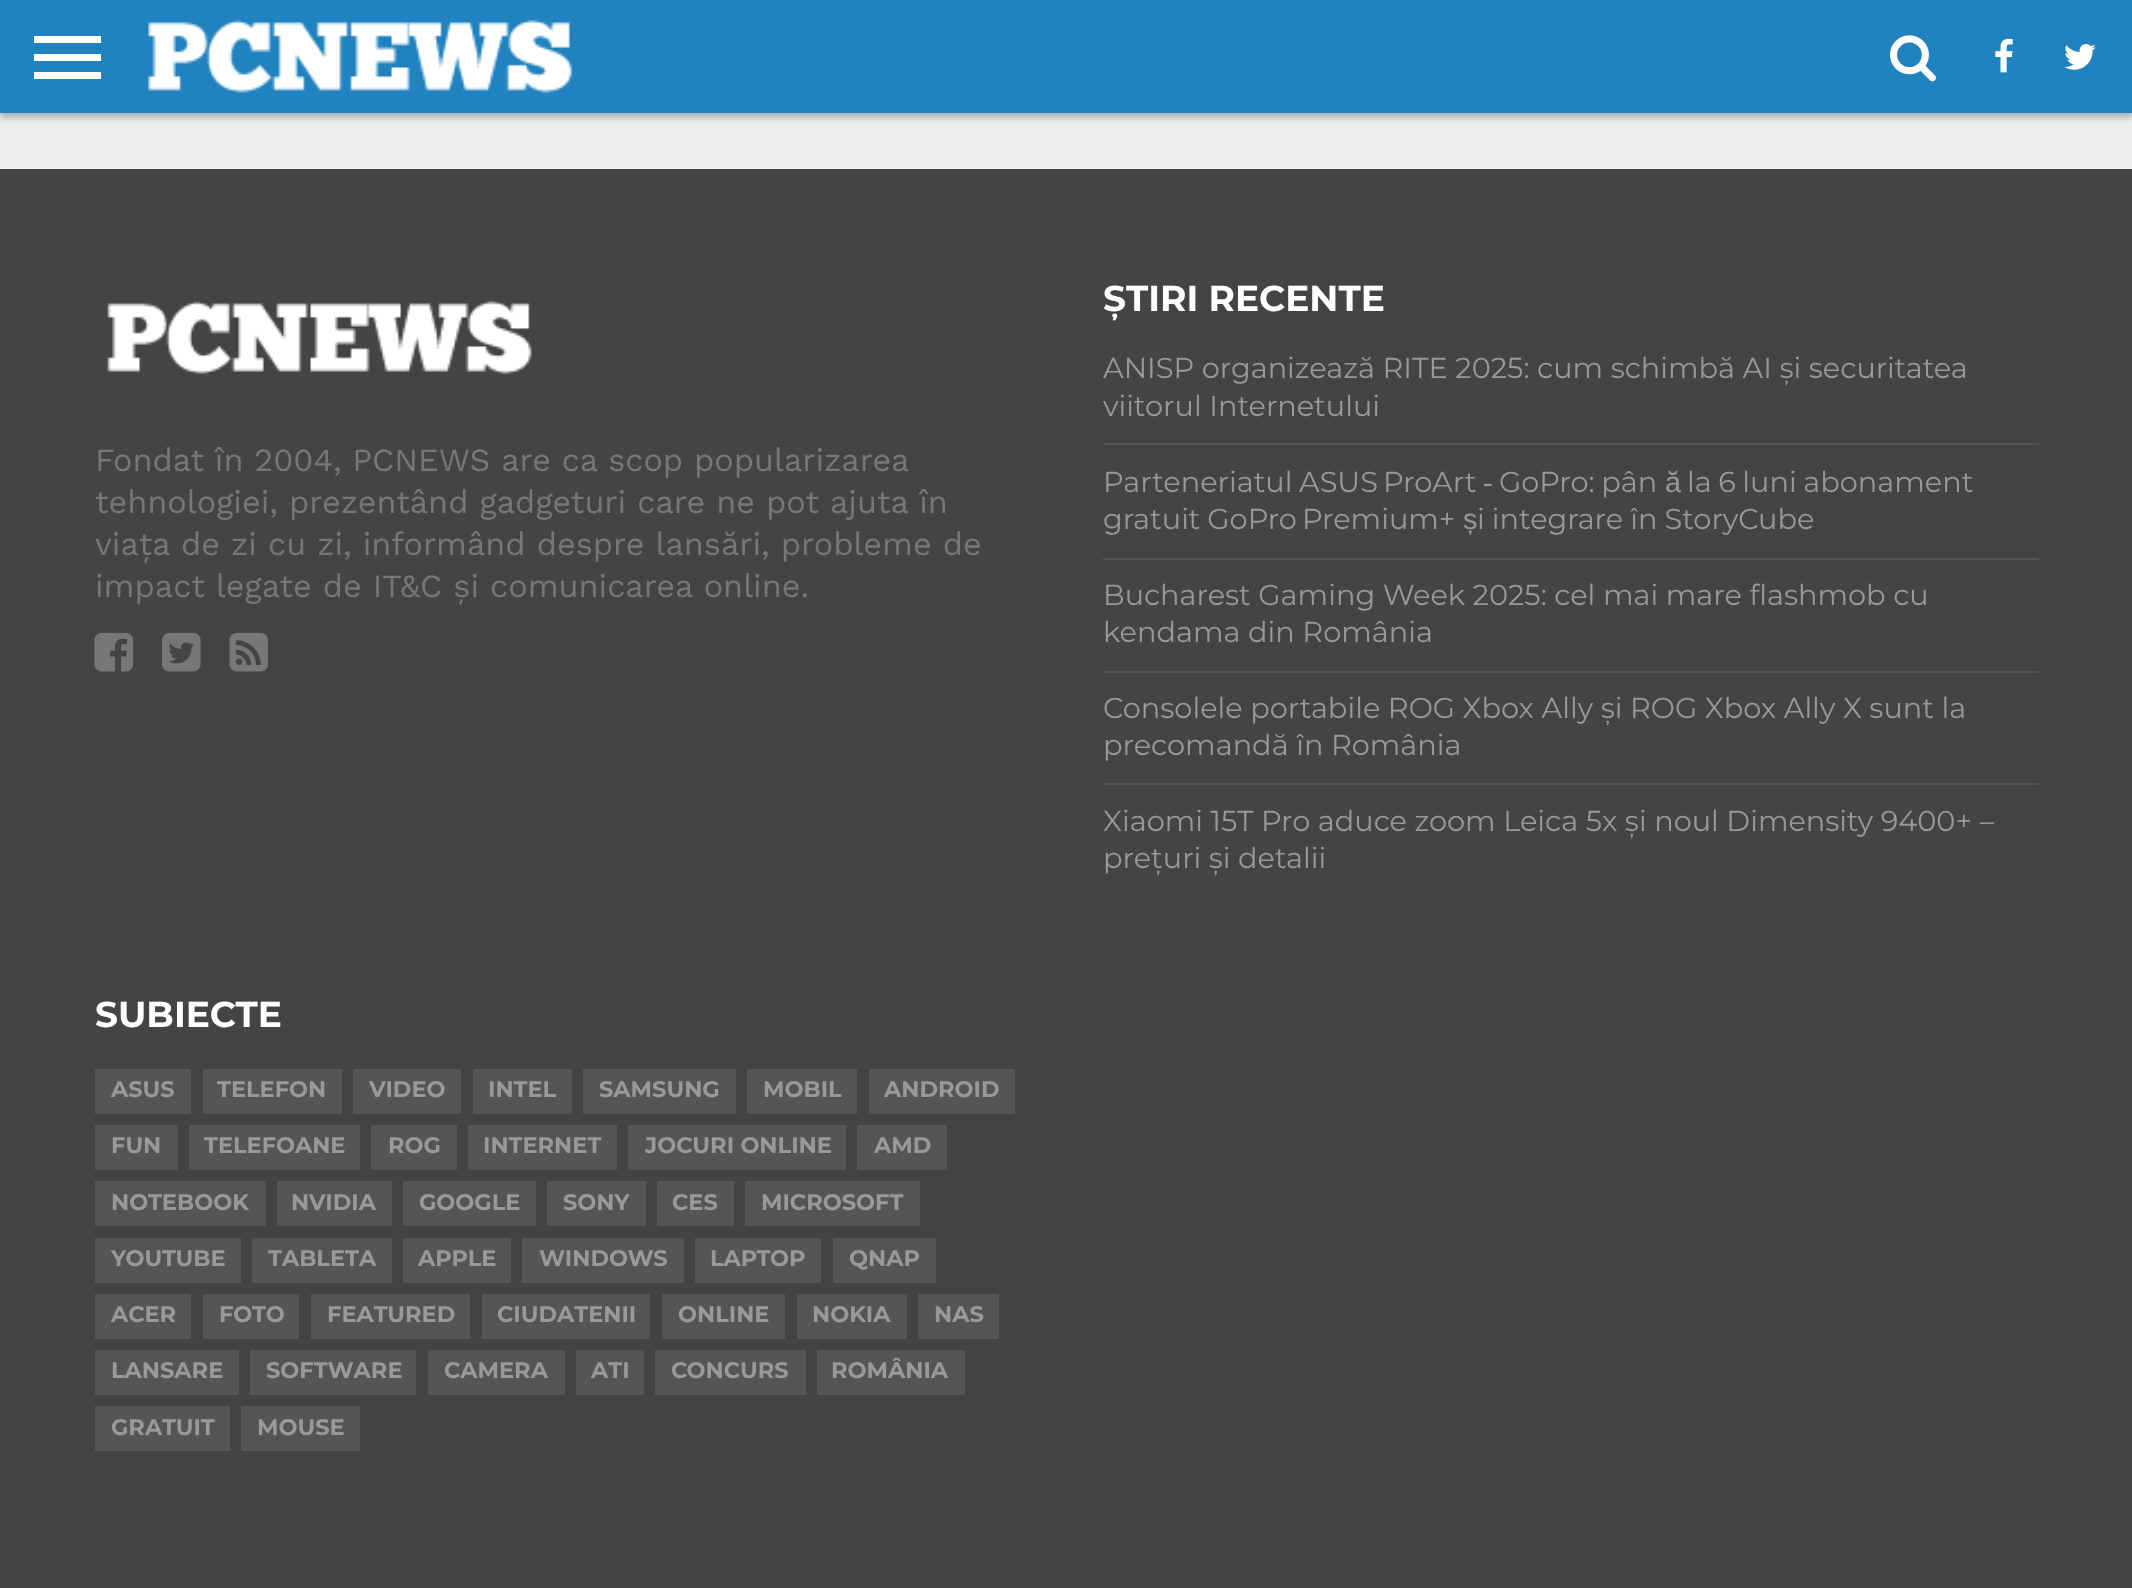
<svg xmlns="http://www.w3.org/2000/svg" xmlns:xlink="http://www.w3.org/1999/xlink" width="2132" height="1588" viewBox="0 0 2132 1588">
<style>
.cls-1{font:32.4px Work Sans;fill:#777777}
.cls-2{font:bold 36px Montserrat;fill:#ffffff}
.cls-3{font:28.8px Montserrat;fill:#999999}
.cls-4{font:28.8px Liberation Sans;fill:#999999}
.cls-5{font:bold 22.5px Montserrat;fill:#999999}
</style>
<rect width="100%" height="100%" fill="#eeeeee"/>
<rect fill="#000000" fill-opacity="0.3" filter="blur(3.5px)" x="0" y="5" width="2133" height="112"/>
<rect fill="#2182c0" x="0" y="0" width="2132" height="113"/>
<rect fill="#ffffff" x="34" y="36" width="67" height="7"/>
<rect fill="#ffffff" x="34" y="54" width="67" height="7"/>
<rect fill="#ffffff" x="34" y="72" width="67" height="7"/>
<image xlink:href="image0.png" x="148" y="19" width="425" height="74"/>
<image xlink:href="image1.png" x="1890" y="35" width="46" height="47"/>
<image xlink:href="image2.png" x="1995" y="38" width="18" height="35"/>
<image xlink:href="image3.png" x="2064" y="44" width="32" height="26"/>
<rect fill="#444444" x="0" y="169" width="2132" height="1419"/>
<image xlink:href="image4.png" x="107" y="301" width="425" height="74"/>
<image xlink:href="image5.png" x="94" y="632" width="39" height="40"/>
<image xlink:href="image6.png" x="162" y="632" width="39" height="40"/>
<image xlink:href="image7.png" x="229" y="632" width="39" height="40"/>
<rect fill="#555555" x="1103" y="443" width="936" height="2"/>
<rect fill="#555555" x="1103" y="558" width="936" height="2"/>
<rect fill="#555555" x="1103" y="671" width="936" height="2"/>
<rect fill="#555555" x="1103" y="783" width="936" height="2"/>
<rect fill="#555555" x="95" y="1069" width="96" height="45"/>
<rect fill="#555555" x="203" y="1069" width="139" height="45"/>
<rect fill="#555555" x="353" y="1069" width="108" height="45"/>
<rect fill="#555555" x="473" y="1069" width="99" height="45"/>
<rect fill="#555555" x="583" y="1069" width="153" height="45"/>
<rect fill="#555555" x="747" y="1069" width="110" height="45"/>
<rect fill="#555555" x="869" y="1069" width="146" height="45"/>
<rect fill="#555555" x="95" y="1125" width="83" height="45"/>
<rect fill="#555555" x="189" y="1125" width="171" height="45"/>
<rect fill="#555555" x="371" y="1125" width="86" height="45"/>
<rect fill="#555555" x="468" y="1125" width="149" height="45"/>
<rect fill="#555555" x="628" y="1125" width="218" height="45"/>
<rect fill="#555555" x="857" y="1125" width="90" height="45"/>
<rect fill="#555555" x="95" y="1181" width="171" height="45"/>
<rect fill="#555555" x="277" y="1181" width="115" height="45"/>
<rect fill="#555555" x="403" y="1181" width="133" height="45"/>
<rect fill="#555555" x="547" y="1181" width="99" height="45"/>
<rect fill="#555555" x="657" y="1181" width="77" height="45"/>
<rect fill="#555555" x="745" y="1181" width="175" height="45"/>
<rect fill="#555555" x="95" y="1238" width="146" height="45"/>
<rect fill="#555555" x="252" y="1238" width="140" height="45"/>
<rect fill="#555555" x="403" y="1238" width="108" height="45"/>
<rect fill="#555555" x="522" y="1238" width="162" height="45"/>
<rect fill="#555555" x="695" y="1238" width="126" height="45"/>
<rect fill="#555555" x="833" y="1238" width="103" height="45"/>
<rect fill="#555555" x="95" y="1294" width="96" height="45"/>
<rect fill="#555555" x="203" y="1294" width="96" height="45"/>
<rect fill="#555555" x="311" y="1294" width="159" height="45"/>
<rect fill="#555555" x="482" y="1294" width="168" height="45"/>
<rect fill="#555555" x="662" y="1294" width="123" height="45"/>
<rect fill="#555555" x="797" y="1294" width="110" height="45"/>
<rect fill="#555555" x="918" y="1294" width="81" height="45"/>
<rect fill="#555555" x="95" y="1350" width="144" height="45"/>
<rect fill="#555555" x="250" y="1350" width="166" height="45"/>
<rect fill="#555555" x="428" y="1350" width="137" height="45"/>
<rect fill="#555555" x="576" y="1350" width="68" height="45"/>
<rect fill="#555555" x="655" y="1350" width="151" height="45"/>
<rect fill="#555555" x="817" y="1350" width="148" height="45"/>
<rect fill="#555555" x="95" y="1406" width="135" height="45"/>
<rect fill="#555555" x="241" y="1406" width="119" height="45"/>
<text class="cls-1"><tspan x="95" y="471" word-spacing="-0.25">Fondat în 2004, PCNEWS are ca scop popularizarea</tspan><tspan x="95" y="513">tehnologiei, prezentând gadgeturi care ne pot ajuta în</tspan><tspan x="95" y="555">viața de zi cu zi, informând despre lansări, probleme de</tspan><tspan x="95" y="597">impact legate de IT&amp;C și comunicarea online.</tspan></text>
<text class="cls-2" x="1103" y="311">ȘTIRI RECENTE</text>
<text class="cls-3"><tspan x="1103" y="378">ANISP organizează RITE 2025: cum schimbă AI și securitatea</tspan><tspan x="1103" y="416">viitorul Internetului</tspan></text>
<text class="cls-3" x="1103" y="492" word-spacing="-1">Parteneriatul ASUS</text>
<text class="cls-3" x="1383" y="492" word-spacing="-1">ProArt ‑ GoPro: pân</text>
<text class="cls-4" x="1665" y="492">ă</text>
<text class="cls-3" x="1687" y="492" word-spacing="-1">la 6 luni abonament</text>
<text class="cls-3" x="1103" y="529" word-spacing="-0.5">gratuit GoPro</text>
<text class="cls-3" x="1302" y="529">Premium+</text>
<text class="cls-4" x="1463" y="529">ș</text>
<text class="cls-3" x="1477" y="529" word-spacing="-0.5">i integrare în StoryCube</text>
<text class="cls-3"><tspan x="1103" y="605">Bucharest Gaming Week 2025: cel mai mare flashmob cu</tspan><tspan x="1103" y="642">kendama din România</tspan></text>
<text class="cls-3"><tspan x="1103" y="718">Consolele portabile ROG Xbox Ally și ROG Xbox Ally X sunt la</tspan><tspan x="1103" y="755">precomandă în România</tspan></text>
<text class="cls-3"><tspan x="1103" y="831">Xiaomi 15T Pro aduce zoom Leica 5x și noul Dimensity 9400+ –</tspan><tspan x="1103" y="868">prețuri și detalii</tspan></text>
<text class="cls-2" x="95" y="1027">SUBIECTE</text>
<text class="cls-5" x="111" y="1097">ASUS</text>
<text class="cls-5" x="217" y="1097">TELEFON</text>
<text class="cls-5" x="369" y="1097">VIDEO</text>
<text class="cls-5" x="488" y="1097">INTEL</text>
<text class="cls-5" x="599" y="1097">SAMSUNG</text>
<text class="cls-5" x="763" y="1097">MOBIL</text>
<text class="cls-5" x="884" y="1097">ANDROID</text>
<text class="cls-5" x="111" y="1153">FUN</text>
<text class="cls-5" x="204" y="1153">TELEFOANE</text>
<text class="cls-5" x="388" y="1153">ROG</text>
<text class="cls-5" x="483" y="1153">INTERNET</text>
<text class="cls-5" x="645" y="1153">JOCURI ONLINE</text>
<text class="cls-5" x="874" y="1153">AMD</text>
<text class="cls-5" x="111" y="1210">NOTEBOOK</text>
<text class="cls-5" x="291" y="1210">NVIDIA</text>
<text class="cls-5" x="419" y="1210">GOOGLE</text>
<text class="cls-5" x="563" y="1210">SONY</text>
<text class="cls-5" x="672" y="1210">CES</text>
<text class="cls-5" x="761" y="1210">MICROSOFT</text>
<text class="cls-5" x="111" y="1266">YOUTUBE</text>
<text class="cls-5" x="268" y="1266">TABLETA</text>
<text class="cls-5" x="418" y="1266">APPLE</text>
<text class="cls-5" x="539" y="1266">WINDOWS</text>
<text class="cls-5" x="710" y="1266">LAPTOP</text>
<text class="cls-5" x="849" y="1266">QNAP</text>
<text class="cls-5" x="111" y="1322">ACER</text>
<text class="cls-5" x="219" y="1322">FOTO</text>
<text class="cls-5" x="327" y="1322">FEATURED</text>
<text class="cls-5" x="497" y="1322">CIUDATENII</text>
<text class="cls-5" x="678" y="1322">ONLINE</text>
<text class="cls-5" x="812" y="1322">NOKIA</text>
<text class="cls-5" x="934" y="1322">NAS</text>
<text class="cls-5" x="111" y="1378">LANSARE</text>
<text class="cls-5" x="266" y="1378">SOFTWARE</text>
<text class="cls-5" x="444" y="1378">CAMERA</text>
<text class="cls-5" x="591" y="1378">ATI</text>
<text class="cls-5" x="671" y="1378">CONCURS</text>
<text class="cls-5" x="831" y="1378">ROMÂNIA</text>
<text class="cls-5" x="111" y="1435">GRATUIT</text>
<text class="cls-5" x="257" y="1435">MOUSE</text>
</svg>
